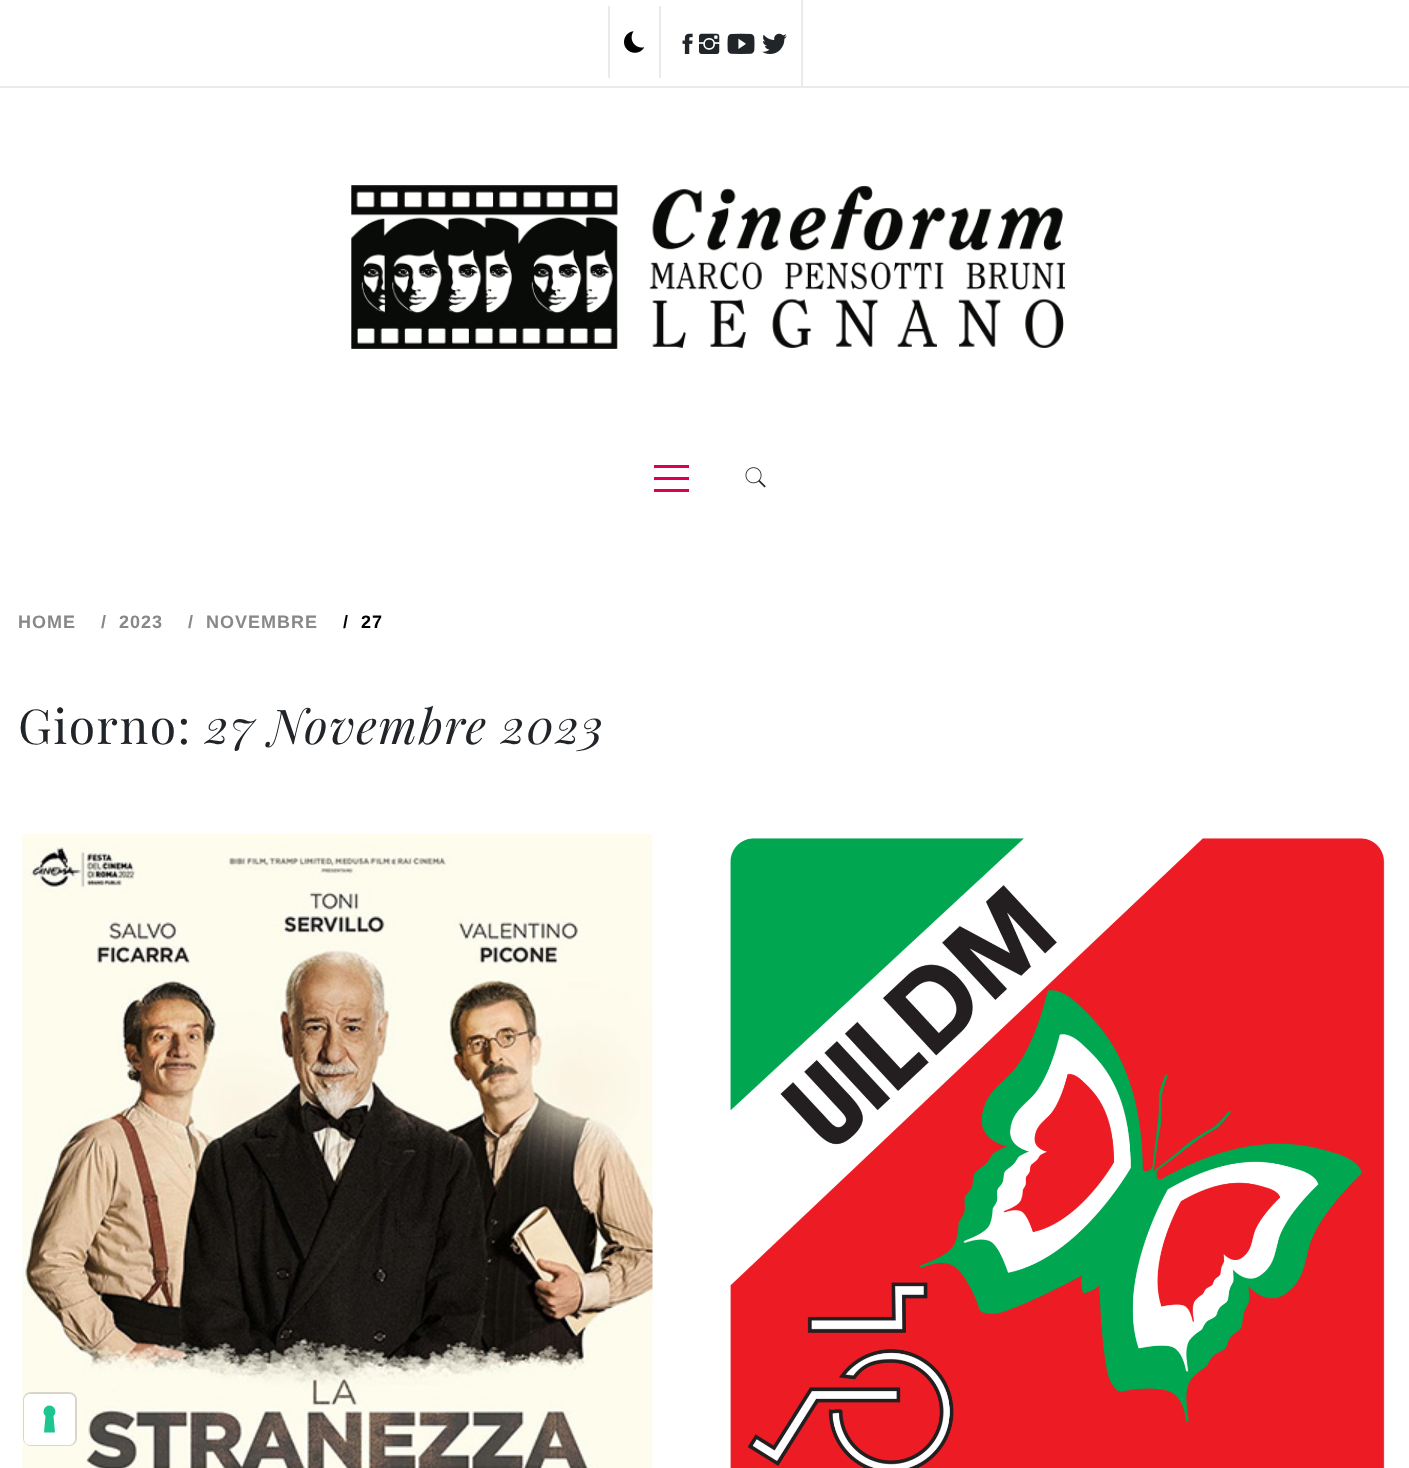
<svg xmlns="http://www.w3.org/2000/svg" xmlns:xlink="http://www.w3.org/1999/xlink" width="1409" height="1468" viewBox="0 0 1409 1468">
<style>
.cls-1{font:bold 18px Liberation Sans;letter-spacing:1px;fill:#888888}
.cls-2{font:bold 18px Liberation Sans;letter-spacing:1px;fill:#000000}
.cls-3{font:48px Playfair Display;letter-spacing:1.5px;fill:#212529}
.cls-4{font:italic 48px Playfair Display;letter-spacing:1.5px;fill:#212529}
</style>
<rect width="100%" height="100%" fill="#ffffff"/>
<rect fill="#eaeaea" x="0" y="86" width="1409" height="2"/>
<rect fill="#eaeaea" x="659" y="6" width="2" height="72"/>
<rect fill="#eaeaea" x="608" y="6" width="2" height="72"/>
<image xlink:href="image0.png" x="624" y="31" width="21" height="22"/>
<rect fill="#eaeaea" x="801" y="0" width="2" height="86"/>
<image xlink:href="image1.png" x="682" y="33" width="11" height="21"/>
<image xlink:href="image2.png" x="699" y="33" width="21" height="21"/>
<image xlink:href="image3.png" x="727" y="33" width="28" height="21"/>
<image xlink:href="image4.png" x="762" y="33" width="25" height="21"/>
<image xlink:href="image5.png" x="351" y="185" width="714" height="164"/>
<rect fill="#dd0052" x="654" y="477" width="35" height="3"/>
<rect fill="#dd0052" x="654" y="465" width="35" height="3"/>
<rect fill="#dd0052" x="654" y="489" width="35" height="3"/>
<image xlink:href="image6.png" x="745" y="467" width="21" height="21"/>
<image xlink:href="image7.png" x="22" y="834" width="631" height="634"/>
<image xlink:href="image8.png" x="730" y="838" width="655" height="630"/>
<rect fill="none" stroke="#d8d6c9" stroke-width="2" x="24" y="1393" width="52" height="52" rx="7"/>
<rect fill="#ffffff" x="24" y="1394" width="51" height="51" rx="6"/>
<path fill="#1cc691" fill-rule="evenodd" d="M49.5 1405.5C55 1405.5 57.5 1412.5 53.5 1416L55 1432.5H44L45.5 1416C41.5 1412.5 44 1405.5 49.5 1405.5Z"/>
<text class="cls-1" x="18" y="628">HOME</text>
<text class="cls-1" x="101" y="628">/</text>
<text class="cls-1" x="119" y="628">2023</text>
<text class="cls-1" x="188" y="628">/</text>
<text class="cls-1" x="206" y="628">NOVEMBRE</text>
<text class="cls-2" x="343" y="628">/</text>
<text class="cls-2" x="361" y="628">27</text>
<text class="cls-3" x="18" y="744">Giorno:</text>
<text class="cls-4" x="205" y="744">27 Novembre 2023</text>
</svg>
